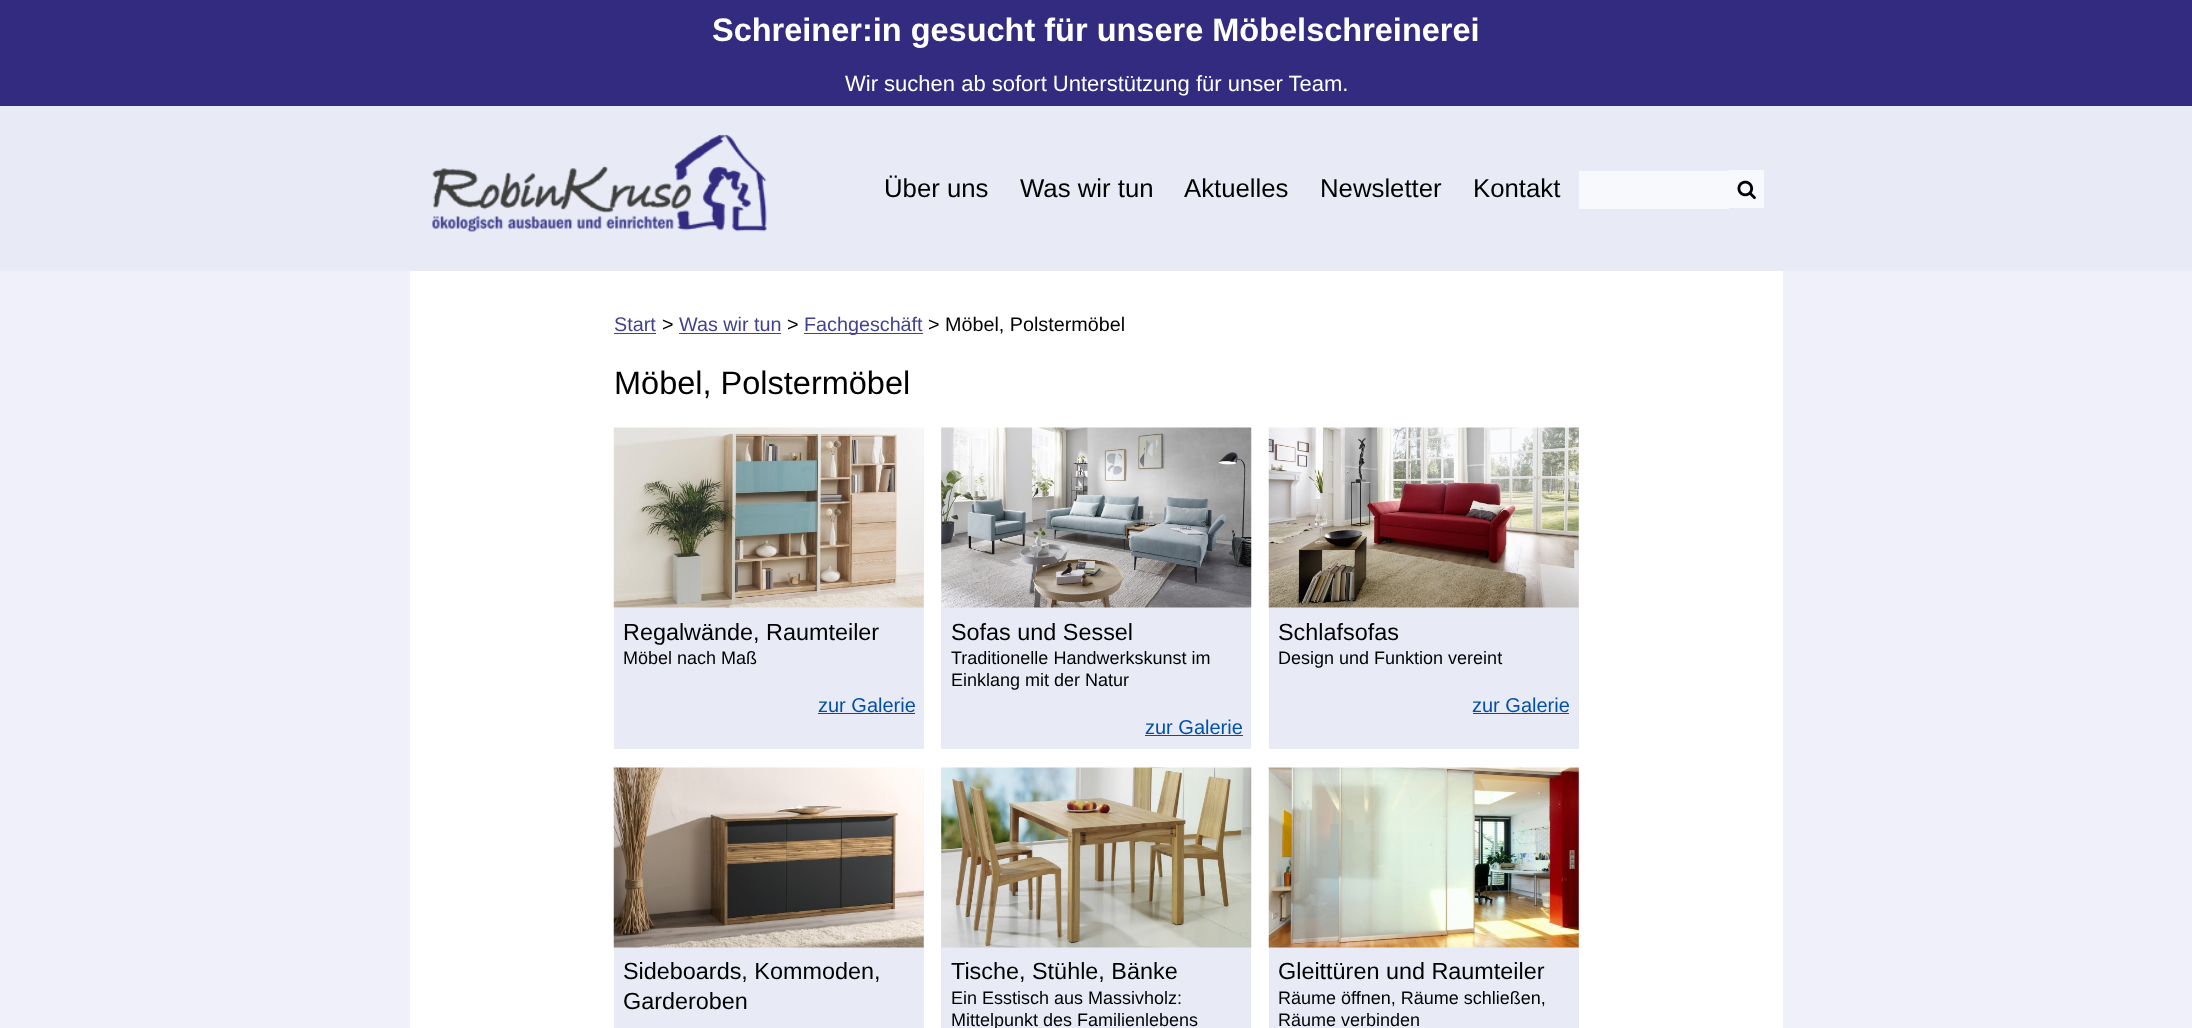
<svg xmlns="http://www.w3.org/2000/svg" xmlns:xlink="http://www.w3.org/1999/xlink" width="2192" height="1028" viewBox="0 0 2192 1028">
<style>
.cls-1{font:bold 32.5px Liberation Sans;fill:#ffffff}
.cls-2{font:22px Liberation Sans;fill:#ffffff}
.cls-3{font:25.75px Liberation Sans;fill:#000000}
.cls-4{font:19.75px Liberation Sans;fill:#41418f}
.cls-5{font:19.75px Liberation Sans;fill:#000000}
.cls-6{font:32.5px Liberation Sans;fill:#000000}
.cls-7{font:23.4px Liberation Sans;fill:#000000}
.cls-8{font:18px Liberation Sans;fill:#000000}
.cls-9{font:20px Liberation Sans;fill:#024fa9}
</style>
<rect width="100%" height="100%" fill="#eff0f9"/>
<rect fill="#322b80" x="0" y="0" width="2192" height="106"/>
<rect fill="#e8eaf6" x="0" y="106" width="2192" height="165"/>
<image xlink:href="image0.png" x="432" y="134" width="335" height="98"/>
<rect fill="#f8f9fc" x="1579" y="171" width="150" height="38"/>
<rect fill="#f8f9fc" x="1729" y="170" width="35" height="38"/>
<image xlink:href="image1.png" x="1737" y="180" width="19" height="20"/>
<rect fill="#ffffff" x="410" y="271" width="1373" height="757"/>
<rect fill="#41418f" x="614" y="333" width="42" height="1"/>
<rect fill="#41418f" x="679" y="333" width="102" height="1"/>
<rect fill="#41418f" x="804" y="333" width="119" height="1"/>
<rect fill="#e8eaf6" x="614" y="428" width="310" height="321"/>
<image xlink:href="image2.png" x="613" y="427" width="311" height="181"/>
<rect fill="#024fa9" x="818" y="713" width="97" height="1"/>
<rect fill="#e8eaf6" x="941" y="428" width="310" height="321"/>
<image xlink:href="image3.png" x="941" y="427" width="311" height="181"/>
<rect fill="#024fa9" x="1145" y="735" width="98" height="1"/>
<rect fill="#e8eaf6" x="1269" y="428" width="310" height="321"/>
<image xlink:href="image4.png" x="1268" y="427" width="311" height="181"/>
<rect fill="#024fa9" x="1473" y="713" width="96" height="1"/>
<rect fill="#e8eaf6" x="614" y="768" width="310" height="260"/>
<image xlink:href="image5.png" x="613" y="767" width="311" height="181"/>
<rect fill="#e8eaf6" x="941" y="768" width="310" height="260"/>
<image xlink:href="image6.png" x="941" y="767" width="311" height="181"/>
<rect fill="#e8eaf6" x="1269" y="768" width="310" height="260"/>
<image xlink:href="image7.png" x="1268" y="767" width="311" height="181"/>
<text class="cls-1" x="712" y="41">Schreiner:in gesucht für unsere Möbelschreinerei</text>
<text class="cls-2" x="845" y="91">Wir suchen ab sofort Unterstützung für unser Team.</text>
<text class="cls-3" x="884" y="197">Über uns</text>
<text class="cls-3" x="1020" y="197">Was wir tun</text>
<text class="cls-3" x="1184" y="197">Aktuelles</text>
<text class="cls-3" x="1320" y="197">Newsletter</text>
<text class="cls-3" x="1473" y="197">Kontakt</text>
<text class="cls-4" x="614" y="331">Start</text>
<text class="cls-5" x="662" y="331">&gt;</text>
<text class="cls-4" x="679" y="331">Was wir tun</text>
<text class="cls-5" x="787" y="331">&gt;</text>
<text class="cls-4" x="804" y="331">Fachgeschäft</text>
<text class="cls-5" x="928" y="331">&gt; Möbel, Polstermöbel</text>
<text class="cls-6" x="614" y="394">Möbel, Polstermöbel</text>
<text class="cls-7" x="623" y="640">Regalwände, Raumteiler</text>
<text class="cls-8" x="623" y="664">Möbel nach Maß</text>
<text class="cls-9" x="818" y="712">zur Galerie</text>
<text class="cls-7" x="951" y="640">Sofas und Sessel</text>
<text class="cls-8"><tspan x="951" y="664">Traditionelle Handwerkskunst im</tspan><tspan x="951" y="686">Einklang mit der Natur</tspan></text>
<text class="cls-9" x="1145" y="734">zur Galerie</text>
<text class="cls-7" x="1278" y="640">Schlafsofas</text>
<text class="cls-8" x="1278" y="664">Design und Funktion vereint</text>
<text class="cls-9" x="1472" y="712">zur Galerie</text>
<text class="cls-7"><tspan x="623" y="979">Sideboards, Kommoden,</tspan><tspan x="623" y="1009">Garderoben</tspan></text>
<text class="cls-7" x="951" y="979">Tische, Stühle, Bänke</text>
<text class="cls-8"><tspan x="951" y="1004">Ein Esstisch aus Massivholz:</tspan><tspan x="951" y="1026">Mittelpunkt des Familienlebens</tspan></text>
<text class="cls-7" x="1278" y="979">Gleittüren und Raumteiler</text>
<text class="cls-8"><tspan x="1278" y="1004">Räume öffnen, Räume schließen,</tspan><tspan x="1278" y="1026">Räume verbinden</tspan></text>
</svg>
